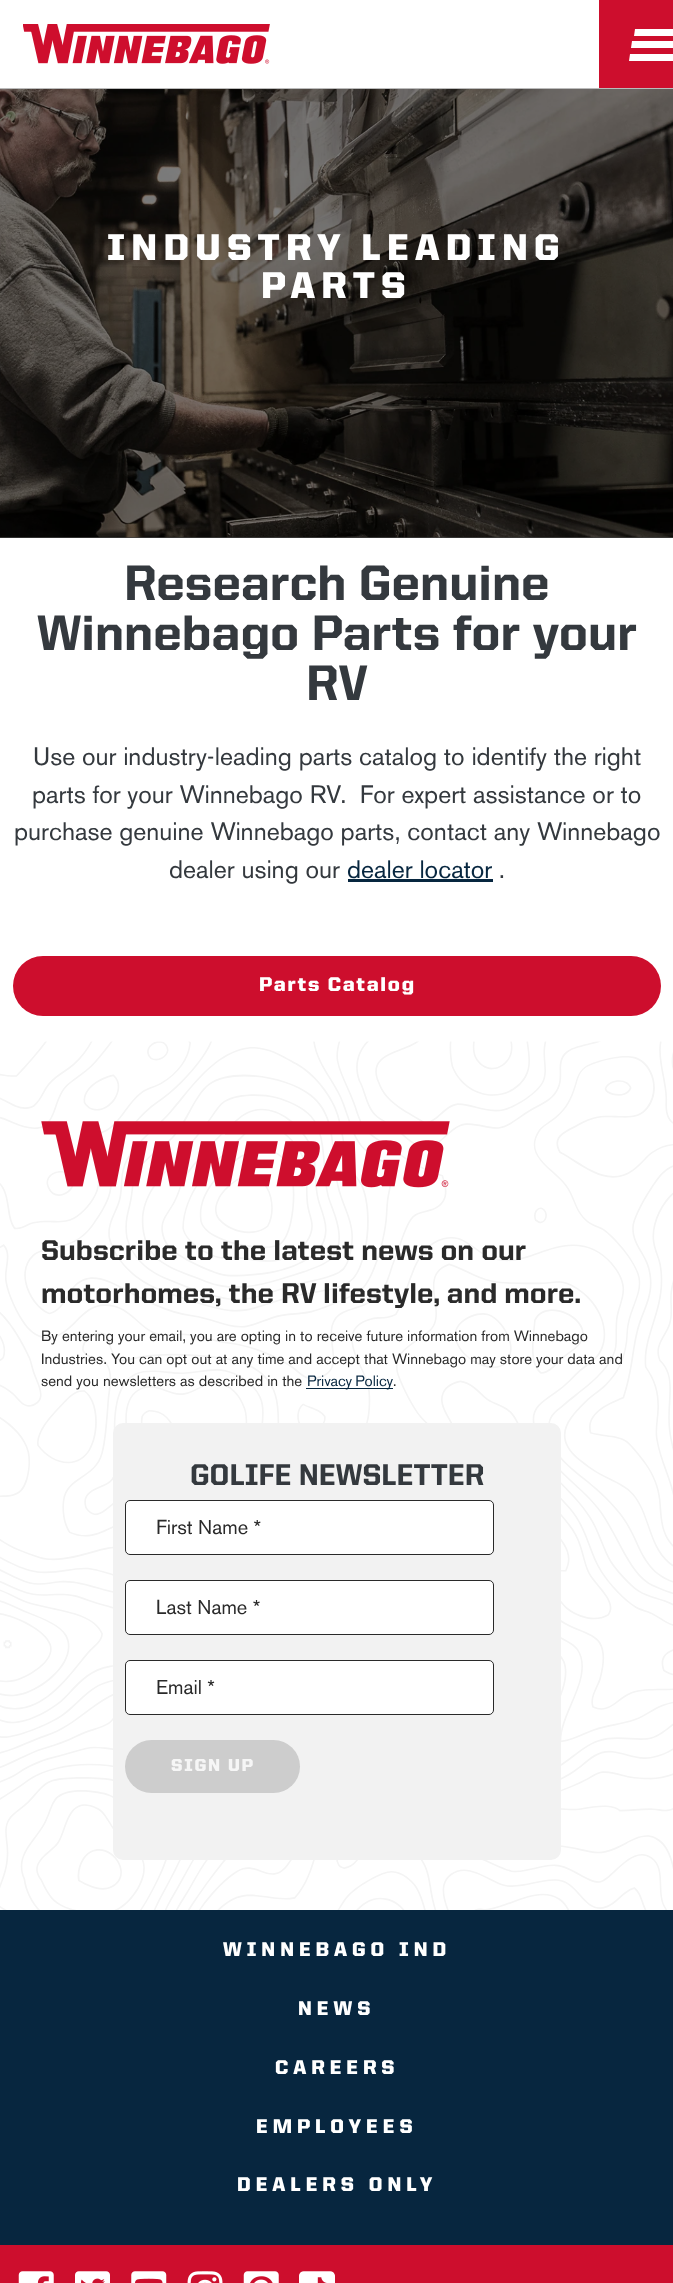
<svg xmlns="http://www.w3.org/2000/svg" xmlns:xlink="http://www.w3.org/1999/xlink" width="673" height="2283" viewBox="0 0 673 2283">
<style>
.cls-1{font:900 37.5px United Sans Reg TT;letter-spacing:6.25px;fill:#ffffff}
.cls-2{font:900 50px 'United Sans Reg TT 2';fill:#34393e}
.cls-3{font:25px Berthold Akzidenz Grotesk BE;fill:#34393e}
.cls-4{font:25px Berthold Akzidenz Grotesk BE;fill:#07263f}
.cls-5{font:900 20px United Sans Reg TT;letter-spacing:1.75px;fill:#ffffff}
.cls-6{font:900 28.75px 'United Sans Reg TT 2';fill:#2a2a2a}
.cls-7{font:15px Berthold Akzidenz Grotesk BE;fill:#2a2a2a}
.cls-8{font:15px Berthold Akzidenz Grotesk BE;fill:#07263f}
.cls-9{font:900 30px 'United Sans Reg TT 2';fill:#34393e}
.cls-10{font:20px Berthold Akzidenz Grotesk BE;fill:#2a2a2a}
.cls-11{font:900 17.5px United Sans Reg TT;letter-spacing:1.75px;fill:#f6f6f6}
.cls-12{font:900 20px United Sans Reg TT;letter-spacing:5px;fill:#ffffff}
</style>
<rect width="100%" height="100%" fill="#ffffff"/>
<rect fill="#bbbbbb" x="0" y="88" width="673" height="1"/>
<image xlink:href="image0.png" x="23" y="24" width="247" height="40"/>
<rect fill="#cd0e2d" x="599" y="0" width="74" height="88"/>
<path fill="#ffffff" d="M629 61H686V54H630ZM631 48H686V41H632ZM634 36H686V29H635Z"/>
<rect fill="#3e3e3e" x="0" y="537" width="673" height="1"/>
<image xlink:href="image1.png" x="0" y="89" width="673" height="449"/>
<rect fill="#07263f" x="348" y="879" width="145" height="3"/>
<rect fill="#cd0e2d" x="13" y="956" width="648" height="60" rx="30"/>
<image xlink:href="image2.png" x="0" y="1041" width="673" height="869"/>
<image xlink:href="image3.png" x="41" y="1121" width="409" height="67"/>
<rect fill="#07263f" x="306" y="1388" width="87" height="1"/>
<rect fill="#f2f2f2" x="113" y="1423" width="448" height="437" rx="10"/>
<rect fill="#ffffff" stroke="#2a2a2a" x="125.5" y="1500.5" width="368" height="54" rx="4.5"/>
<rect fill="#ffffff" stroke="#2a2a2a" x="125.5" y="1580.5" width="368" height="54" rx="4.5"/>
<rect fill="#ffffff" stroke="#2a2a2a" x="125.5" y="1660.5" width="368" height="54" rx="4.5"/>
<rect fill="#cdcdcd" x="125" y="1740" width="175" height="53" rx="26.5"/>
<rect fill="#07263f" x="0" y="1910" width="673" height="335"/>
<rect fill="#cd0e2d" x="0" y="2245" width="673" height="38"/>
<image xlink:href="image4.png" x="18" y="2271" width="36" height="12"/>
<image xlink:href="image5.png" x="75" y="2271" width="35" height="12"/>
<image xlink:href="image6.png" x="131" y="2271" width="36" height="12"/>
<image xlink:href="image7.png" x="187" y="2271" width="36" height="12"/>
<image xlink:href="image8.png" x="243" y="2271" width="36" height="12"/>
<image xlink:href="image9.png" x="299" y="2271" width="36" height="12"/>
<text class="cls-1" x="107" y="260">INDUSTRY LEADING</text>
<text class="cls-1" x="261" y="298">PARTS</text>
<text class="cls-2" x="124" y="600">Research Genuine</text>
<text class="cls-2" x="37" y="650">Winnebago Parts for your</text>
<text class="cls-2" x="306" y="700">RV</text>
<text class="cls-3" x="33" y="765">Use our industry-leading parts catalog to identify the right</text>
<text class="cls-3" xml:space="preserve" x="32" y="803">parts for your Winnebago RV.  For expert assistance or to</text>
<text class="cls-3" x="14" y="840">purchase genuine Winnebago parts, contact any Winnebago</text>
<text class="cls-3" x="169" y="878">dealer using our</text>
<text class="cls-4" x="347" y="878">dealer locator</text>
<text class="cls-3" x="499" y="878">.</text>
<text class="cls-5" x="259" y="991">Parts Catalog</text>
<text class="cls-6"><tspan x="41" y="1260">Subscribe to the latest news on our</tspan><tspan x="41" y="1303">motorhomes, the RV lifestyle, and more.</tspan></text>
<text class="cls-7"><tspan x="41" y="1341">By entering your email, you are opting in to receive future information from Winnebago</tspan><tspan x="41" y="1364">Industries. You can opt out at any time and accept that Winnebago may store your data and</tspan><tspan x="41" y="1386">send you newsletters as described in the</tspan></text>
<text class="cls-8" x="307" y="1386" word-spacing="-1">Privacy Policy</text>
<text class="cls-7" x="393" y="1386">.</text>
<text class="cls-9" x="190" y="1485">GOLIFE NEWSLETTER</text>
<text class="cls-10" x="156" y="1534">First Name *</text>
<text class="cls-10" x="156" y="1614">Last Name *</text>
<text class="cls-10" x="156" y="1694">Email *</text>
<text class="cls-11" x="171" y="1771">SIGN UP</text>
<text class="cls-12" x="223" y="1956">WINNEBAGO IND</text>
<text class="cls-12" x="298" y="2015">NEWS</text>
<text class="cls-12" x="275" y="2074">CAREERS</text>
<text class="cls-12" x="256" y="2133">EMPLOYEES</text>
<text class="cls-12" x="237" y="2191">DEALERS ONLY</text>
</svg>
